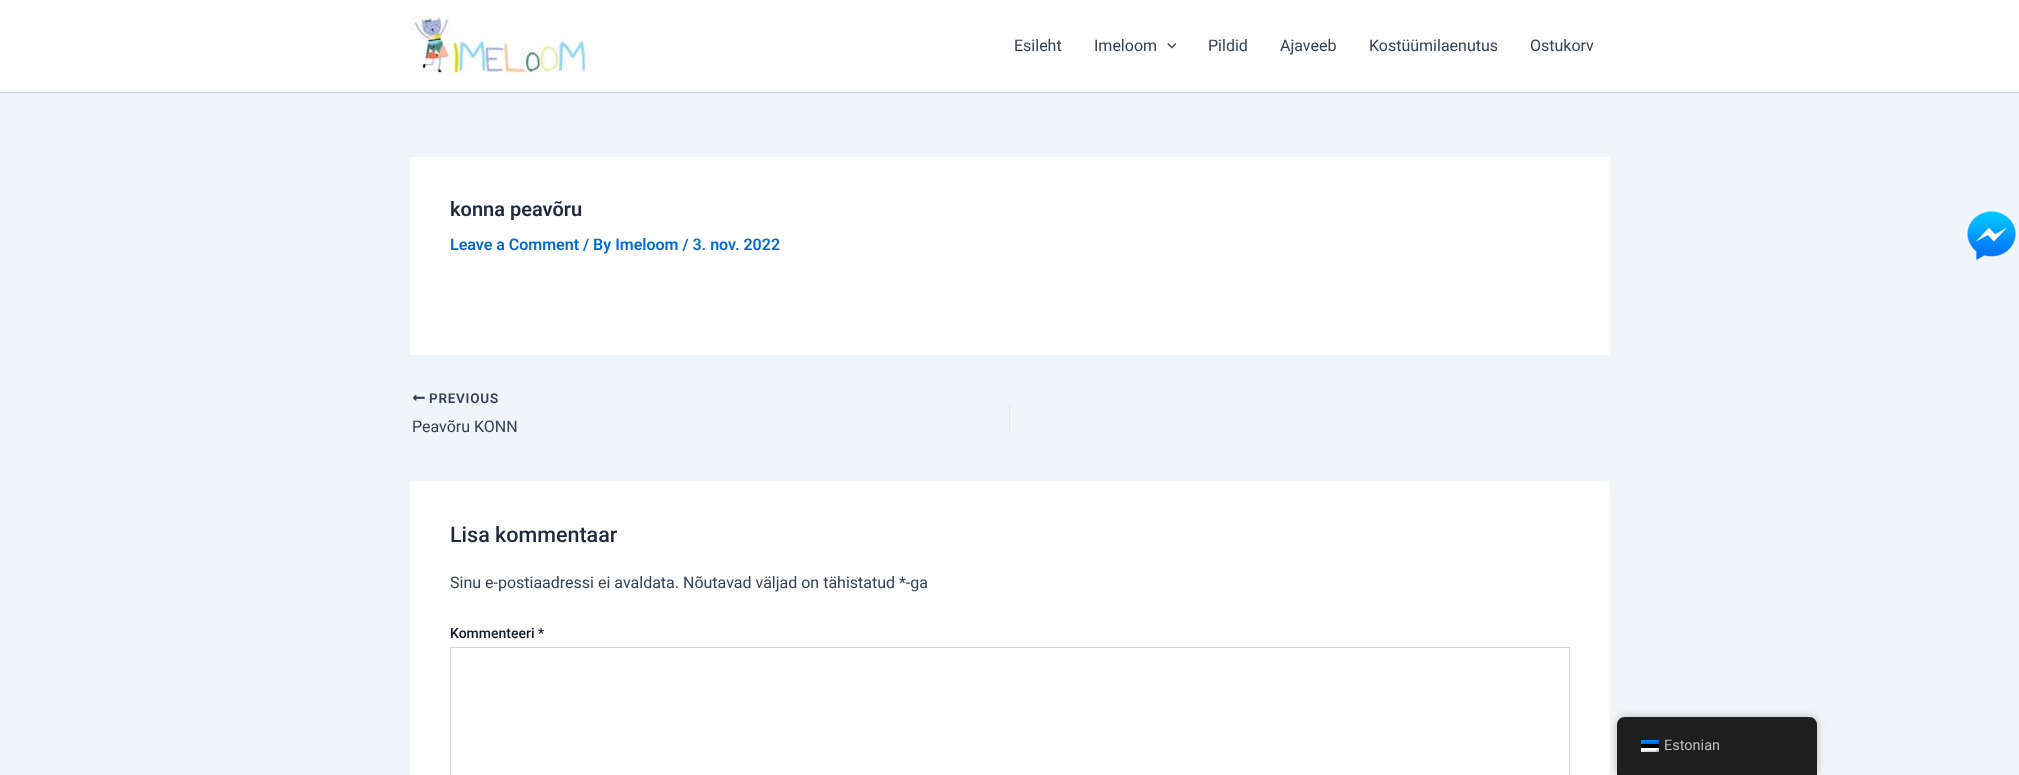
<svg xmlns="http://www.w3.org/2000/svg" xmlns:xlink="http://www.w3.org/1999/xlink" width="2019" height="775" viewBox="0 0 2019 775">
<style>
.cls-1{font:16px Roboto;fill:#334155}
.cls-2{font:600 20px Roboto;fill:#1e293b}
.cls-3{font:600 16px Roboto;fill:#046bd2}
.cls-4{font:600 13.5px Roboto;letter-spacing:0.75px;fill:#334155}
.cls-5{font:500 21.5px Roboto;fill:#1e293b}
.cls-6{font:500 14px Roboto;fill:#111827}
.cls-7{font:14.5px Roboto;fill:#bdbdbd}
</style>
<rect width="100%" height="100%" fill="#f0f5fa"/>
<rect fill="#ffffff" x="0" y="0" width="2019" height="92"/>
<rect fill="#d1d5db" x="0" y="92" width="2019" height="1"/>
<image xlink:href="image0.png" x="410" y="16" width="177" height="60"/>
<image xlink:href="image1.png" x="1167" y="43" width="9" height="6"/>
<rect fill="#ffffff" x="410" y="157" width="1200" height="198"/>
<image xlink:href="image2.png" x="412" y="394" width="13" height="7"/>
<rect fill="#e1e8ed" x="1009" y="403" width="1" height="30"/>
<rect fill="#ffffff" x="410" y="481" width="1200" height="294"/>
<rect fill="none" stroke="#d1d5db" x="450.5" y="647.5" width="1119" height="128"/>
<image xlink:href="image3.png" x="1967" y="210" width="49" height="51"/>
<rect fill="#000000" fill-opacity="0.25" filter="blur(4px)" x="1617" y="717" width="200" height="58" rx="8"/>
<path fill="#1e1e1e" d="M1625 717H1809C1813.5 717 1817 720.5 1817 725V775H1617V725C1617 720.5 1620.5 717 1625 717Z"/>
<image xlink:href="image4.png" x="1641" y="740" width="18" height="12"/>
<text class="cls-1" x="1014" y="51">Esileht</text>
<text class="cls-1" x="1094" y="51">Imeloom</text>
<text class="cls-1" x="1208" y="51">Pildid</text>
<text class="cls-1" x="1280" y="51">Ajaveeb</text>
<text class="cls-1" x="1369" y="51">Kostüümilaenutus</text>
<text class="cls-1" x="1530" y="51">Ostukorv</text>
<text class="cls-2" x="450" y="216">konna peavõru</text>
<text class="cls-3" x="450" y="250">Leave a Comment / By Imeloom / 3. nov. 2022</text>
<text class="cls-4" x="429" y="403">PREVIOUS</text>
<text class="cls-1" x="412" y="432">Peavõru KONN</text>
<text class="cls-5" x="450" y="542">Lisa kommentaar</text>
<text class="cls-1" x="450" y="588">Sinu e-postiaadressi ei avaldata. Nõutavad väljad on tähistatud *-ga</text>
<text class="cls-6" x="450" y="638">Kommenteeri *</text>
<text class="cls-7" x="1664" y="750">Estonian</text>
</svg>
